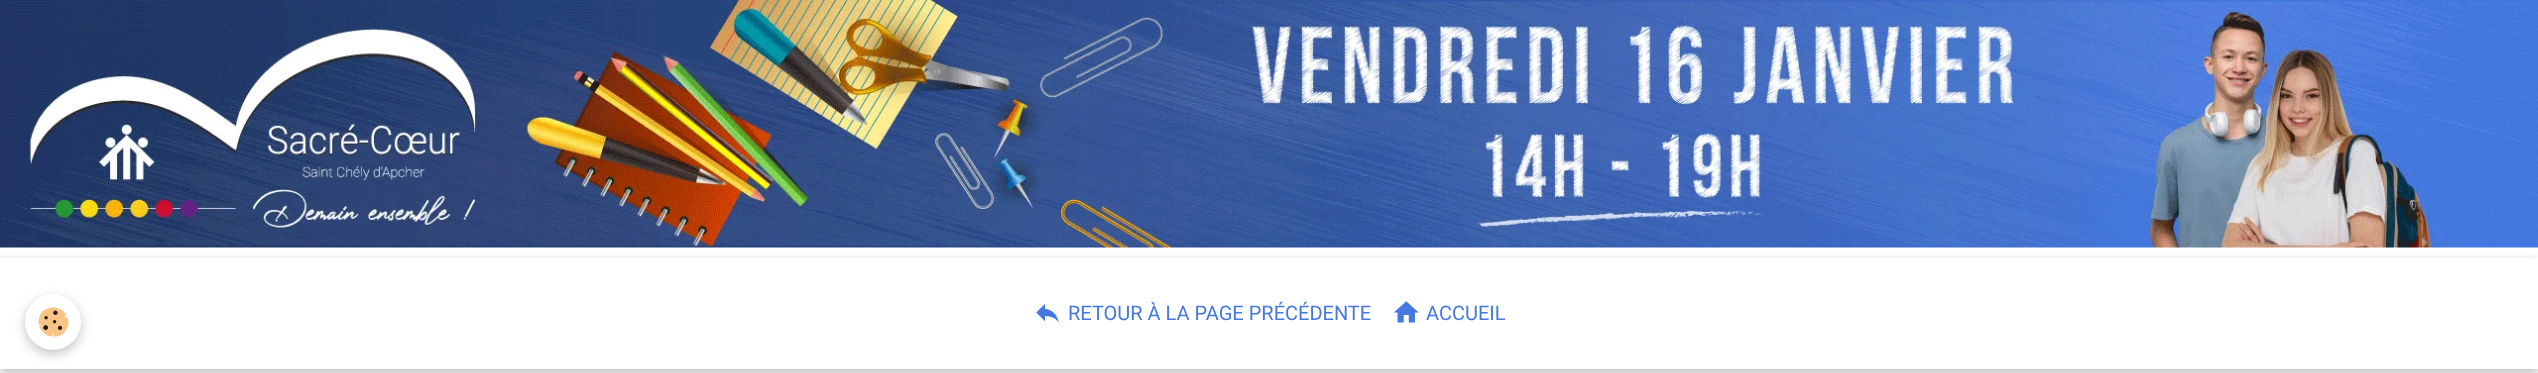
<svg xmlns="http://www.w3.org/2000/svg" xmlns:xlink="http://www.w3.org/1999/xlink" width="2538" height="373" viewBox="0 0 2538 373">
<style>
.cls-1{font:20px Roboto;fill:#4679e0}
</style>
<rect width="100%" height="100%" fill="#ffffff"/>
<image xlink:href="image0.png" x="0" y="0" width="2538" height="248"/>
<rect fill="#bcbcbc" filter="blur(5px)" x="0" y="261" width="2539" height="112"/>
<rect fill="#ffffff" x="0" y="258" width="2538" height="111"/>
<rect fill="#000000" fill-opacity="0.24" filter="blur(6px)" x="25" y="298" width="56" height="56" rx="28"/>
<circle fill="#ffffff" cx="53" cy="322" r="28"/>
<image xlink:href="image1.png" x="38" y="307" width="31" height="30"/>
<image xlink:href="image2.png" x="1036" y="303" width="23" height="20"/>
<image xlink:href="image3.png" x="1393" y="301" width="26" height="22"/>
<text class="cls-1" x="1068" y="320">RETOUR À LA PAGE PRÉCÉDENTE</text>
<text class="cls-1" x="1426" y="320">ACCUEIL</text>
</svg>
